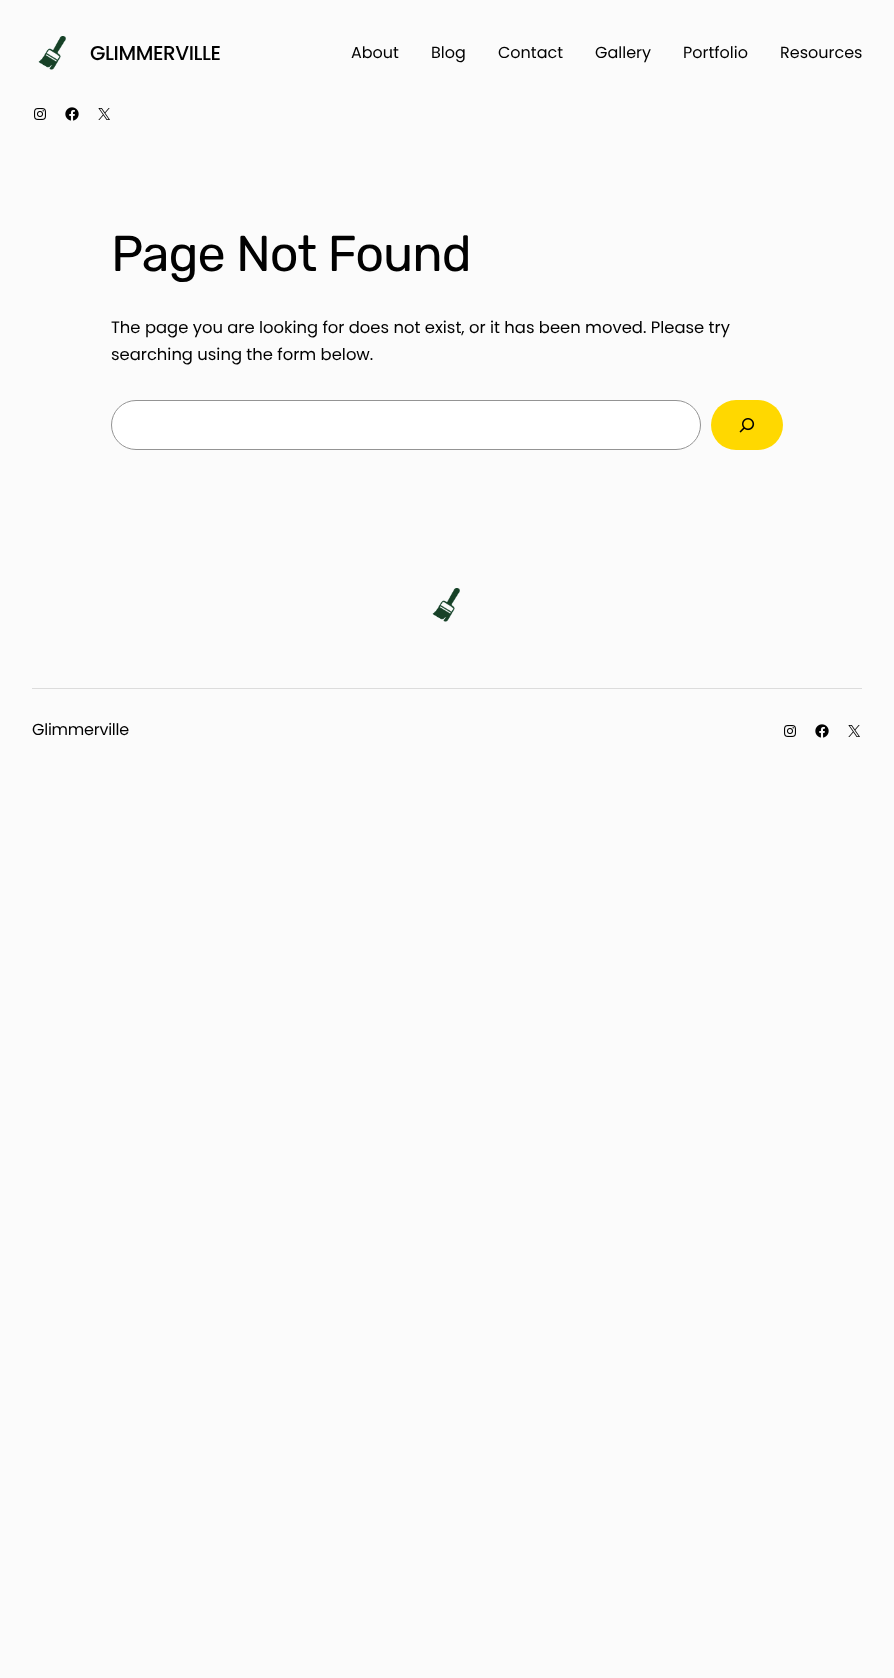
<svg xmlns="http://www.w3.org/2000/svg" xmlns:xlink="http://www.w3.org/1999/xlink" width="894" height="1678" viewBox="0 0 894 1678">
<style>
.cls-1{font:500 20px Poppins;letter-spacing:-0.4px;fill:#010101}
.cls-2{font:16px Poppins;fill:#010101}
.cls-3{font:50.25px Rubik;letter-spacing:-1px;fill:#010101}
.cls-4{font:16.4px Poppins;fill:#010101}
.cls-5{font:16px Poppins;letter-spacing:-0.25px;fill:#010101}
</style>
<rect width="100%" height="100%" fill="#fbfbfb"/>
<image xlink:href="image0.png" x="38" y="36" width="28" height="34"/>
<image xlink:href="image1.png" x="34" y="108" width="12" height="12"/>
<image xlink:href="image2.png" x="65" y="107" width="14" height="14"/>
<image xlink:href="image3.png" x="98" y="108" width="12" height="12"/>
<rect fill="#ffffff" stroke="#949494" x="111.5" y="400.5" width="589" height="49" rx="24.5"/>
<rect fill="#ffd800" x="711" y="400" width="72" height="50" rx="25"/>
<image xlink:href="image4.png" x="739" y="418" width="16" height="15"/>
<image xlink:href="image0.png" x="432" y="588" width="28" height="34"/>
<rect fill="#dcdcdc" x="32" y="688" width="830" height="1"/>
<image xlink:href="image1.png" x="784" y="725" width="12" height="12"/>
<image xlink:href="image2.png" x="815" y="724" width="14" height="14"/>
<image xlink:href="image3.png" x="848" y="725" width="12" height="12"/>
<text class="cls-1" x="90" y="60">GLIMMERVILLE</text>
<text class="cls-2" x="351" y="58">About</text>
<text class="cls-2" x="431" y="58">Blog</text>
<text class="cls-2" x="498" y="58">Contact</text>
<text class="cls-2" x="595" y="58">Gallery</text>
<text class="cls-2" x="683" y="58">Portfolio</text>
<text class="cls-2" x="780" y="58">Resources</text>
<text class="cls-3" x="111" y="271">Page Not Found</text>
<text class="cls-4"><tspan x="111" y="333">The page you are looking for does not exist, or it has been moved. Please try</tspan><tspan x="111" y="360">searching using the form below.</tspan></text>
<text class="cls-5" x="32" y="735">Glimmerville</text>
</svg>
